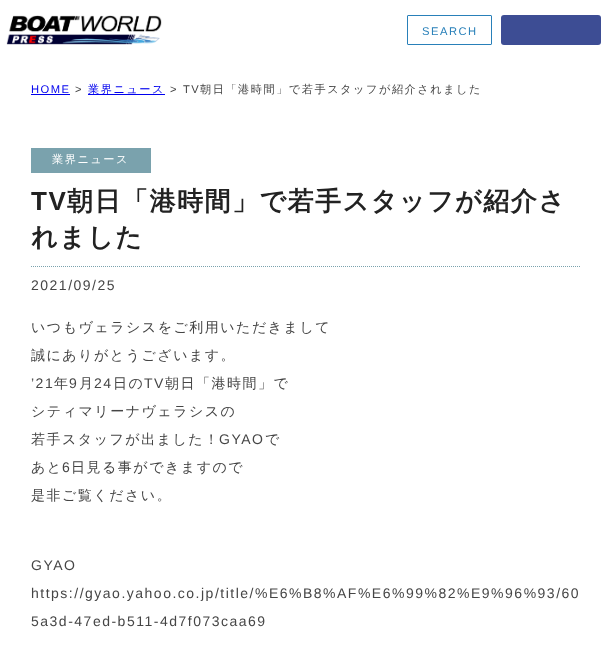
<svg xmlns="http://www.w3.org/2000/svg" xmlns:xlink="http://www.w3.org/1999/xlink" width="611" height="650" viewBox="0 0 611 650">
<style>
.cls-1{font:11.2px Liberation Sans;letter-spacing:1.5px;fill:#2980b9}
.cls-2{font:11.2px Liberation Sans;letter-spacing:1.5px;fill:#0000ee}
.cls-3{font:11.2px Liberation Sans;letter-spacing:1.5px;fill:#454545}
.cls-4{font:500 11.2px WenQuanYi Zen Hei;letter-spacing:1.5px;fill:#0000ee}
.cls-5{font:500 11.2px WenQuanYi Zen Hei;letter-spacing:1.5px;fill:#454545}
.cls-6{font:500 11.2px WenQuanYi Zen Hei;letter-spacing:1.5px;fill:#ffffff}
.cls-7{font:bold 26px Liberation Sans;letter-spacing:1.5px;fill:#222222}
.cls-8{font:bold 26px WenQuanYi Zen Hei;letter-spacing:1.5px;fill:#222222}
.cls-9{font:14px Liberation Sans;letter-spacing:1.5px;fill:#454545}
.cls-10{font:500 14px WenQuanYi Zen Hei;letter-spacing:1.5px;fill:#454545}
</style>
<defs>
<clipPath id="clip1"><rect x="31" y="313" width="549" height="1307"/></clipPath>
</defs>
<rect width="100%" height="100%" fill="#ffffff"/>
<image xlink:href="image0.png" x="6" y="15" width="156" height="30"/>
<rect fill="none" stroke="#2980b9" x="407.5" y="15.5" width="84" height="29" rx="0.5"/>
<rect fill="#3d4d94" x="501" y="15" width="100" height="30" rx="3"/>
<rect fill="#0000ee" x="31" y="94" width="39" height="1"/>
<rect fill="#0000ee" x="88" y="94" width="77" height="1"/>
<rect fill="#7aa2ad" x="31" y="148" width="120" height="25"/>
<path fill="none" stroke="#7aa2ad" stroke-dasharray="1 1" d="M31 266.5H580"/>
<text class="cls-1" x="422" y="35">SEARCH</text>
<text class="cls-2" x="31" y="93">HOME</text>
<text class="cls-3" x="75" y="93">&gt;</text>
<text class="cls-4" x="88" y="93">業界ニュース</text>
<text class="cls-3" x="170" y="93">&gt;</text>
<text class="cls-3" x="183" y="93">TV</text>
<text class="cls-5" x="200" y="93">朝日「港時間」で若手スタッフが紹介されました</text>
<text class="cls-6" x="52" y="163">業界ニュース</text>
<text class="cls-7" x="31" y="210">TV</text>
<text class="cls-8" x="67" y="210">朝日「港時間」で若手スタッフが紹介さ</text>
<text class="cls-8" x="31" y="246">れました</text>
<text class="cls-9" x="31" y="290">2021/09/25</text>
<text class="cls-10" x="31" y="332">いつもヴェラシスをご利用いただきまして</text>
<g clip-path="url(#clip1)">
<text class="cls-10" x="31" y="360">誠にありがとうございます。</text>
</g>
<text class="cls-9" x="31" y="388">’21</text>
<text class="cls-10" x="54" y="388">年</text>
<text class="cls-9" x="69" y="388">9</text>
<text class="cls-10" x="79" y="388">月</text>
<text class="cls-9" x="94" y="388">24</text>
<text class="cls-10" x="113" y="388">日の</text>
<text class="cls-9" x="144" y="388">TV</text>
<text class="cls-10" x="165" y="388">朝日「港時間」で</text>
<text class="cls-10" x="31" y="416">シティマリーナヴェラシスの</text>
<text class="cls-10" x="31" y="444">若手スタッフが出ました！</text>
<text class="cls-9" x="219" y="444">GYAO</text>
<text class="cls-10" x="265" y="444">で</text>
<text class="cls-10" x="31" y="472">あと</text>
<text class="cls-9" x="62" y="472">6</text>
<text class="cls-10" x="71" y="472">日見る事ができますので</text>
<text class="cls-10" x="31" y="500">是非ご覧ください。</text>
<text class="cls-9" x="31" y="570">GYAO</text>
<text class="cls-9" x="31" y="598">https://gyao.yahoo.co.jp/title/%E6%B8%AF%E6%99%82%E9%96%93/60</text>
<text class="cls-9" x="31" y="626">5a3d-47ed-b511-4d7f073caa69</text>
</svg>
